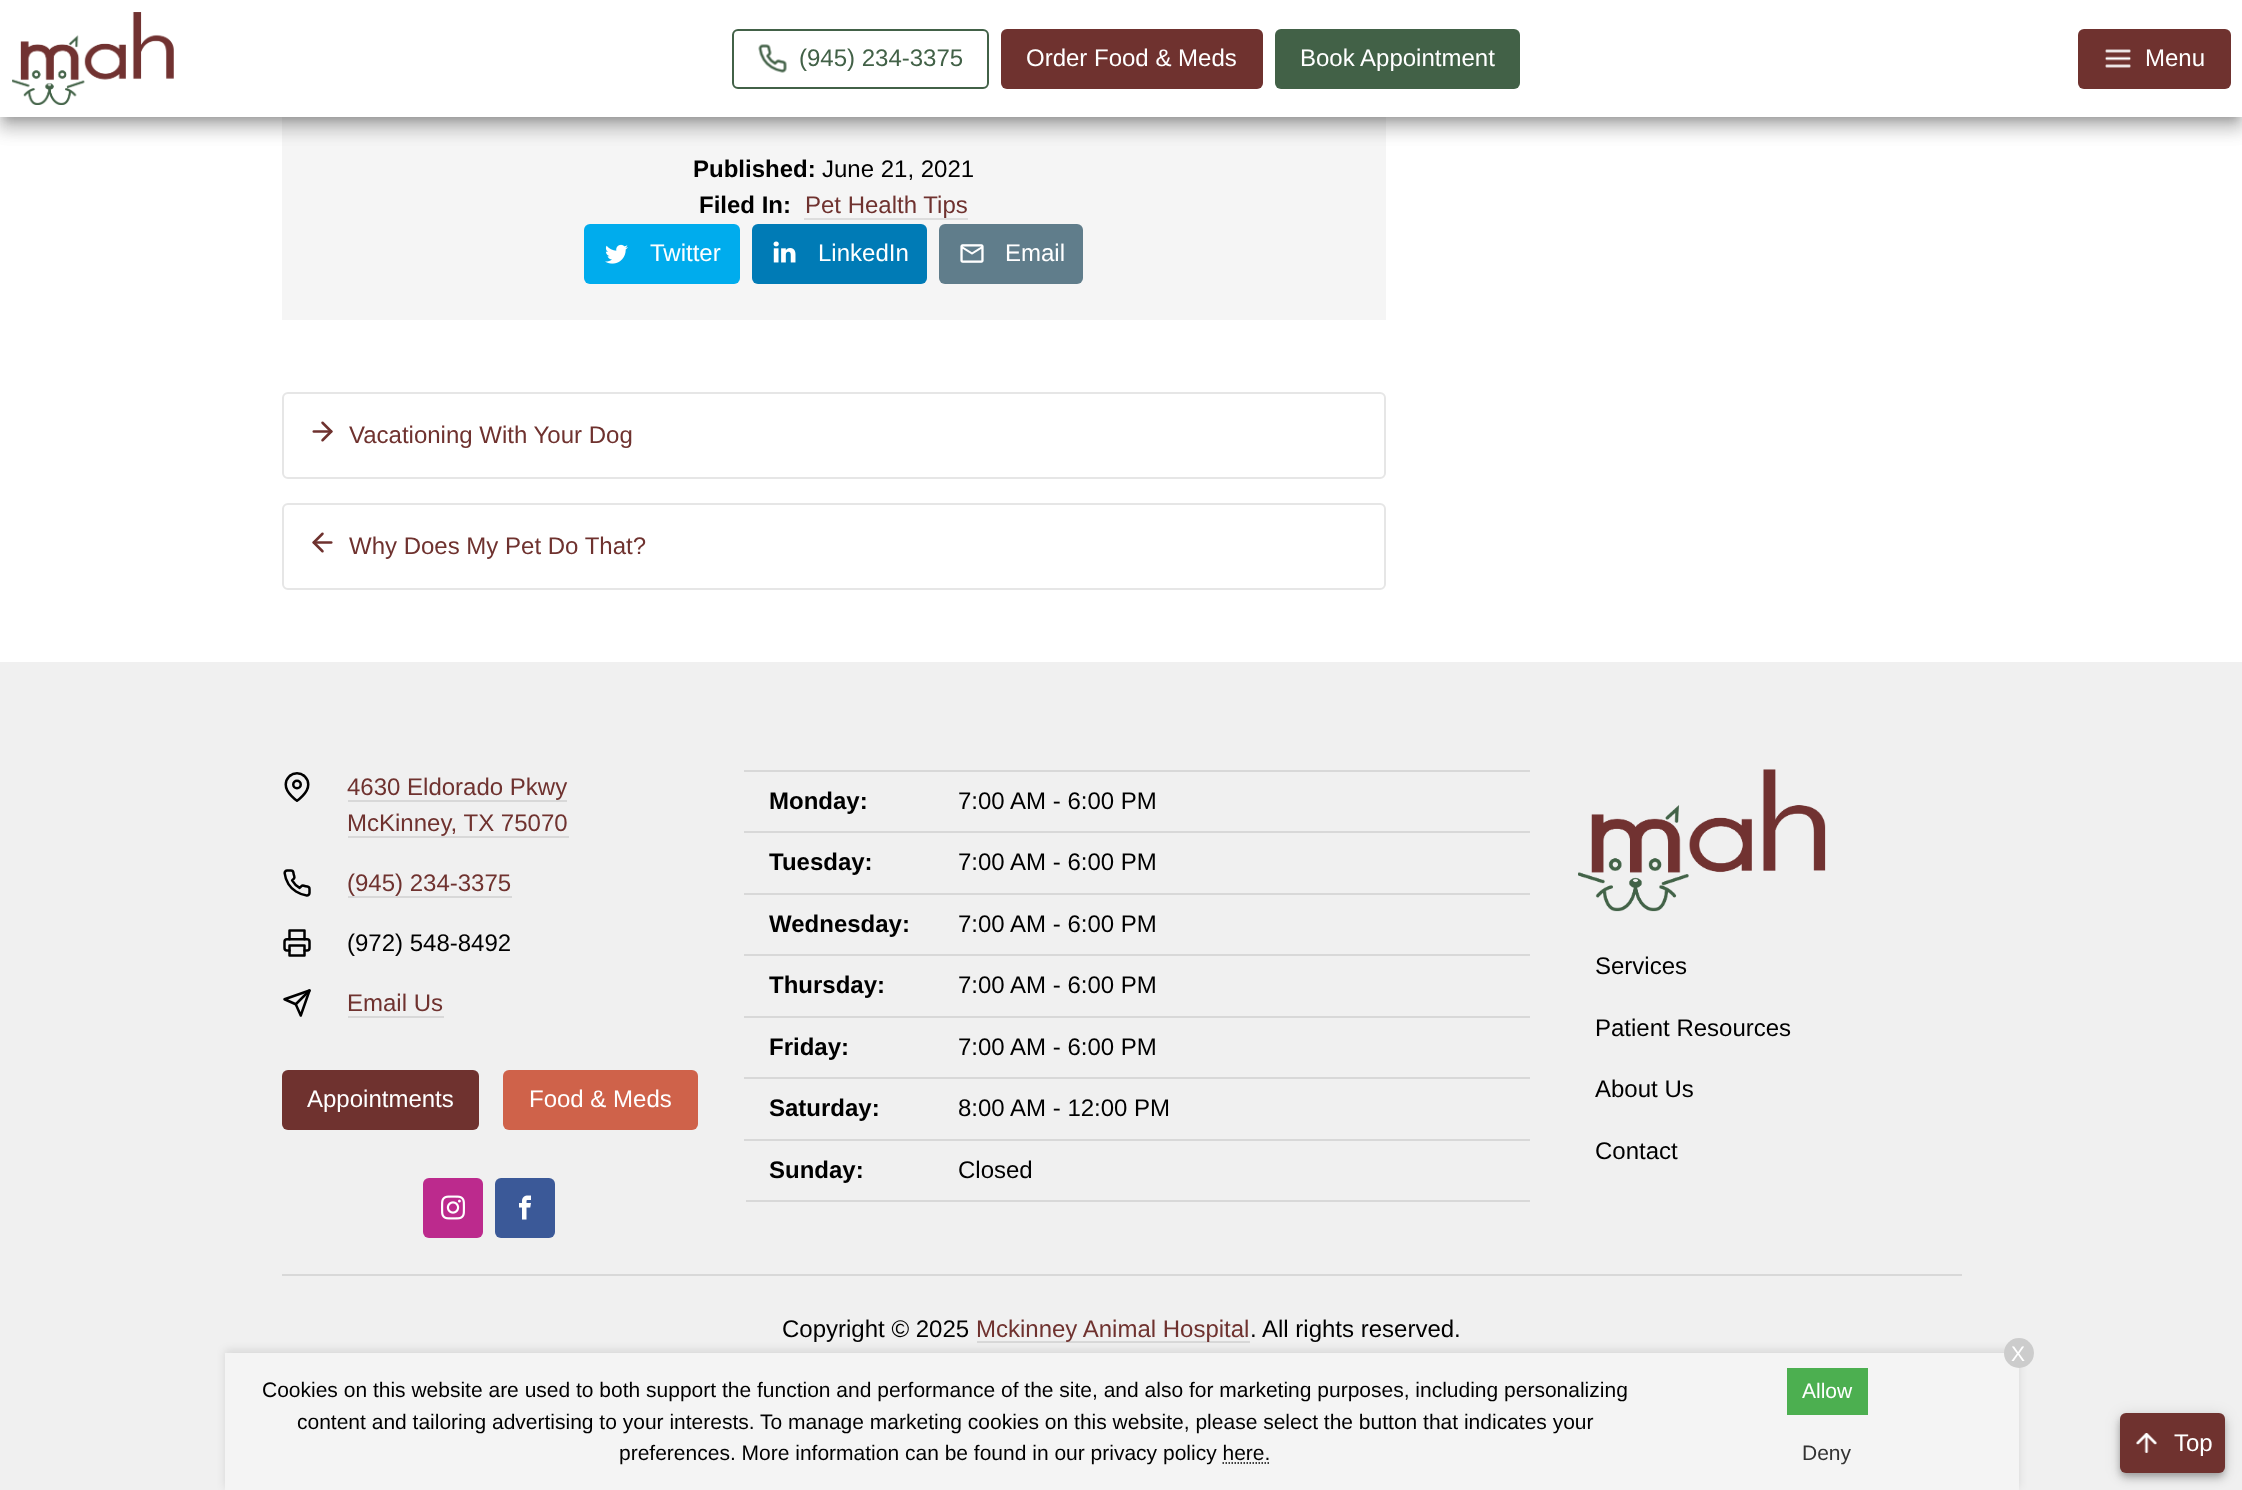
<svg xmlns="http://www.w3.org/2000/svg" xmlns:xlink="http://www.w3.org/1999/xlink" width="2242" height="1490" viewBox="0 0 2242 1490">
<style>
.cls-1{font:24px Arimo;fill:#426147}
.cls-2{font:24px Arimo;fill:#ffffff}
.cls-3{font:bold 24px Arimo;fill:#000000}
.cls-4{font:24px Arimo;fill:#000000}
.cls-5{font:24px Arimo;fill:#6f322f}
.cls-6{font:21px Arimo;fill:#ffffff}
.cls-7{font:21px Arimo;fill:#000000}
.cls-8{font:21px Arimo;fill:#333333}
</style>
<rect width="100%" height="100%" fill="#ffffff"/>
<rect fill="#f5f5f5" x="282" y="117" width="1104" height="203"/>
<rect fill="#000000" fill-opacity="0.12" filter="blur(10.5px)" x="-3" y="2" width="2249" height="123"/>
<rect fill="#000000" fill-opacity="0.14" filter="blur(7.5px)" x="-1" y="11" width="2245" height="120"/>
<rect fill="#000000" fill-opacity="0.2" filter="blur(4px)" x="5" y="12" width="2233" height="108"/>
<rect fill="#ffffff" x="0" y="0" width="2242" height="117"/>
<image xlink:href="image0.png" x="12" y="12" width="162" height="93"/>
<rect fill="none" stroke="#426147" stroke-width="2" x="733" y="30" width="255" height="58" rx="5"/>
<image xlink:href="image1.png" x="758" y="44" width="29" height="29"/>
<rect fill="#6f322f" x="1001" y="29" width="262" height="60" rx="6"/>
<rect fill="#426147" x="1275" y="29" width="245" height="60" rx="6"/>
<rect fill="#6f322f" x="2078" y="29" width="153" height="60" rx="6"/>
<image xlink:href="image2.png" x="2105" y="49" width="26" height="19"/>
<rect fill="#dddddd" x="804" y="218" width="164" height="2"/>
<rect fill="#00aced" x="584" y="224" width="156" height="60" rx="6"/>
<image xlink:href="image3.png" x="605" y="244" width="23" height="20"/>
<rect fill="#007bb6" x="752" y="224" width="175" height="60" rx="6"/>
<image xlink:href="image4.png" x="773" y="241" width="23" height="22"/>
<rect fill="#607d8b" x="939" y="224" width="144" height="60" rx="6"/>
<image xlink:href="image5.png" x="960" y="244" width="24" height="19"/>
<rect fill="none" stroke="#e6e6e6" stroke-width="2" x="283" y="393" width="1102" height="85" rx="5"/>
<image xlink:href="image6.png" x="312" y="421" width="21" height="21"/>
<rect fill="none" stroke="#e6e6e6" stroke-width="2" x="283" y="504" width="1102" height="85" rx="5"/>
<image xlink:href="image7.png" x="312" y="532" width="21" height="21"/>
<rect fill="#f0f0f0" x="0" y="662" width="2242" height="828"/>
<image xlink:href="image8.png" x="284" y="772" width="26" height="30"/>
<rect fill="#d8d8d8" x="348" y="800" width="219" height="2"/>
<rect fill="#d8d8d8" x="348" y="836" width="221" height="2"/>
<image xlink:href="image9.png" x="283" y="869" width="28" height="28"/>
<rect fill="#d8d8d8" x="348" y="896" width="164" height="2"/>
<image xlink:href="image10.png" x="283" y="929" width="28" height="28"/>
<image xlink:href="image11.png" x="283" y="989" width="28" height="28"/>
<rect fill="#d8d8d8" x="348" y="1016" width="96" height="2"/>
<rect fill="#6f322f" x="282" y="1070" width="197" height="60" rx="6"/>
<rect fill="#cf624a" x="503" y="1070" width="195" height="60" rx="6"/>
<rect fill="#bc2a8d" x="423" y="1178" width="60" height="60" rx="6"/>
<image xlink:href="image12.png" x="441" y="1195" width="24" height="25"/>
<rect fill="#3b5998" x="495" y="1178" width="60" height="60" rx="6"/>
<image xlink:href="image13.png" x="519" y="1195" width="12" height="25"/>
<rect fill="#d8d8d8" x="746" y="1200" width="784" height="2"/>
<rect fill="#d8d8d8" x="744" y="770" width="786" height="2"/>
<rect fill="#d8d8d8" x="744" y="831" width="786" height="2"/>
<rect fill="#d8d8d8" x="744" y="893" width="786" height="2"/>
<rect fill="#d8d8d8" x="744" y="954" width="786" height="2"/>
<rect fill="#d8d8d8" x="744" y="1016" width="786" height="2"/>
<rect fill="#d8d8d8" x="744" y="1077" width="786" height="2"/>
<rect fill="#d8d8d8" x="744" y="1139" width="786" height="2"/>
<image xlink:href="image14.png" x="1578" y="769" width="248" height="143"/>
<rect fill="#d8d8d8" x="282" y="1274" width="1680" height="2"/>
<rect fill="#d8d8d8" x="977" y="1341" width="273" height="2"/>
<rect fill="#000000" fill-opacity="0.1" filter="blur(4px)" x="225" y="1350" width="1794" height="138"/>
<rect fill="#f4f4f4" x="225" y="1353" width="1794" height="137"/>
<circle fill="#cccccc" cx="2019" cy="1353" r="15"/>
<path fill="none" stroke="#000000" stroke-width="1.5" stroke-dasharray="1.5 1.5" d="M1222.5 1463H1270.5"/>
<rect fill="#4caf50" x="1787" y="1368" width="81" height="47"/>
<rect fill="#000000" fill-opacity="0.12" filter="blur(7.5px)" x="2120" y="1415" width="105" height="60" rx="6"/>
<rect fill="#000000" fill-opacity="0.14" filter="blur(4px)" x="2120" y="1419" width="105" height="60" rx="6"/>
<rect fill="#000000" fill-opacity="0.2" filter="blur(3px)" x="2121" y="1418" width="102" height="57" rx="5"/>
<rect fill="#6f322f" x="2120" y="1413" width="105" height="60" rx="6"/>
<image xlink:href="image15.png" x="2136" y="1433" width="21" height="20"/>
<text class="cls-1" x="799" y="66">(945) 234-3375</text>
<text class="cls-2" x="1026" y="66">Order Food &amp; Meds</text>
<text class="cls-2" x="1300" y="66">Book Appointment</text>
<text class="cls-2" x="2145" y="66">Menu</text>
<text class="cls-3" x="693" y="177">Published:</text>
<text class="cls-4" x="822" y="177">June 21, 2021</text>
<text class="cls-3" x="699" y="213">Filed In:</text>
<text class="cls-5" x="805" y="213">Pet Health Tips</text>
<text class="cls-2" x="650" y="261">Twitter</text>
<text class="cls-2" x="818" y="261">LinkedIn</text>
<text class="cls-2" x="1005" y="261">Email</text>
<text class="cls-5" x="349" y="443">Vacationing With Your Dog</text>
<text class="cls-5" x="349" y="554">Why Does My Pet Do That?</text>
<text class="cls-5"><tspan x="347" y="795">4630 Eldorado Pkwy</tspan><tspan x="347" y="831">McKinney, TX 75070</tspan></text>
<text class="cls-5" x="347" y="891">(945) 234-3375</text>
<text class="cls-4" x="347" y="951">(972) 548-8492</text>
<text class="cls-5" x="347" y="1011">Email Us</text>
<text class="cls-2" x="307" y="1107">Appointments</text>
<text class="cls-2" x="529" y="1107">Food &amp; Meds</text>
<text class="cls-3" x="769" y="809">Monday:</text>
<text class="cls-4" x="958" y="809">7:00 AM - 6:00 PM</text>
<text class="cls-3" x="769" y="870">Tuesday:</text>
<text class="cls-4" x="958" y="870">7:00 AM - 6:00 PM</text>
<text class="cls-3" x="769" y="932">Wednesday:</text>
<text class="cls-4" x="958" y="932">7:00 AM - 6:00 PM</text>
<text class="cls-3" x="769" y="993">Thursday:</text>
<text class="cls-4" x="958" y="993">7:00 AM - 6:00 PM</text>
<text class="cls-3" x="769" y="1055">Friday:</text>
<text class="cls-4" x="958" y="1055">7:00 AM - 6:00 PM</text>
<text class="cls-3" x="769" y="1116">Saturday:</text>
<text class="cls-4" x="958" y="1116">8:00 AM - 12:00 PM</text>
<text class="cls-3" x="769" y="1178">Sunday:</text>
<text class="cls-4" x="958" y="1178">Closed</text>
<text class="cls-4" x="1595" y="974">Services</text>
<text class="cls-4" x="1595" y="1036">Patient Resources</text>
<text class="cls-4" x="1595" y="1097">About Us</text>
<text class="cls-4" x="1595" y="1159">Contact</text>
<text class="cls-4" x="782" y="1337">Copyright © 2025</text>
<text class="cls-5" x="976" y="1337">Mckinney Animal Hospital</text>
<text class="cls-4" x="1250" y="1337">. All rights reserved.</text>
<text class="cls-6" x="2011" y="1361">X</text>
<text class="cls-7" x="262" y="1397">Cookies on this website are used to both support the function and performance of the site, and also for marketing purposes, including personalizing</text>
<text class="cls-7" x="297" y="1429">content and tailoring advertising to your interests. To manage marketing cookies on this website, please select the button that indicates your</text>
<text class="cls-7" x="619" y="1460">preferences. More information can be found in our privacy policy here.</text>
<text class="cls-6" x="1802" y="1398">Allow</text>
<text class="cls-8" x="1802" y="1460">Deny</text>
<text class="cls-2" x="2174" y="1451">Top</text>
</svg>
